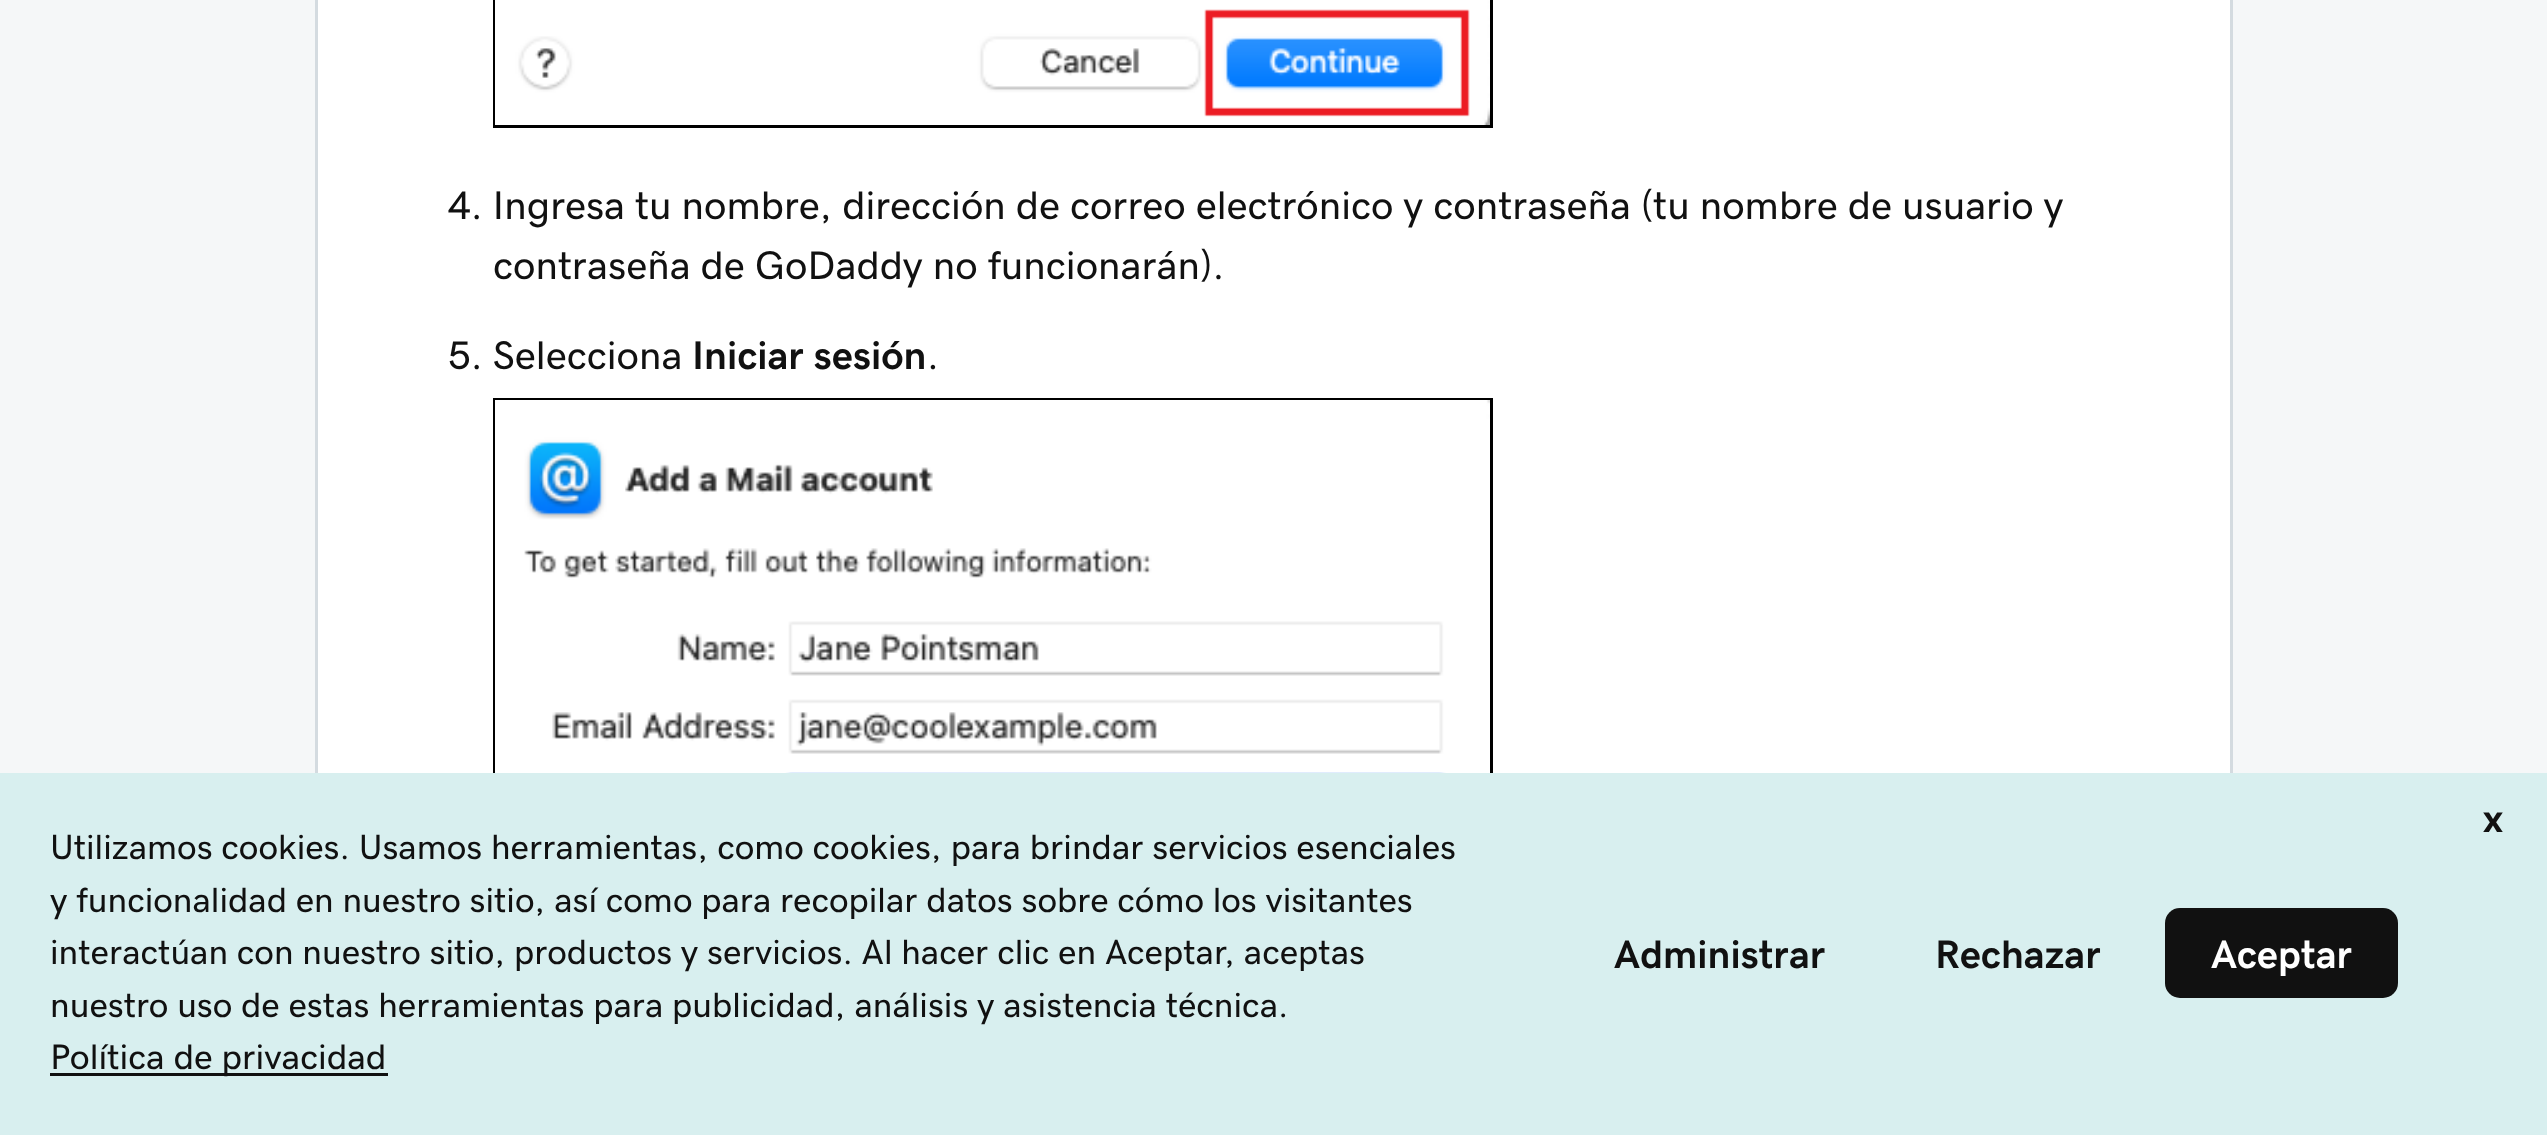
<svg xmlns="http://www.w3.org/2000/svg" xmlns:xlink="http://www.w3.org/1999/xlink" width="2547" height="1135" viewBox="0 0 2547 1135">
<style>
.cls-1{font:40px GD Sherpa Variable;fill:#111111}
.cls-2{font:bold 40px GD Sherpa Variable;fill:#111111}
.cls-3{font:bold 40px 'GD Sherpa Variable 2';fill:#111111}
.cls-4{font:35px GD Sherpa Variable;fill:#111111}
.cls-5{font:35.5px GD Sherpa Variable;fill:#111111}
.cls-6{font:bold 40px 'GD Sherpa Variable 2';fill:#ffffff}
</style>
<rect width="100%" height="100%" fill="#f5f7f8"/>
<rect fill="#ffffff" x="318" y="0" width="1912" height="773"/>
<rect fill="none" stroke="#d4dbe0" stroke-width="3" x="316.5" y="-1.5" width="1915" height="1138"/>
<rect fill="none" stroke="#000000" stroke-width="3" x="494.5" y="-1.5" width="997" height="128"/>
<image xlink:href="image0.png" x="495" y="0" width="995" height="125"/>
<rect fill="none" stroke="#000000" stroke-width="3" x="494.5" y="399.5" width="997" height="599"/>
<image xlink:href="image1.png" x="495" y="400" width="995" height="373"/>
<rect fill="#d8efef" x="0" y="773" width="2547" height="362"/>
<rect fill="#111111" x="50" y="1073" width="338" height="3"/>
<rect fill="#111111" x="2165" y="908" width="233" height="90" rx="15"/>
<text class="cls-1" x="448" y="219">4. Ingresa tu nombre, dirección de correo electrónico y contraseña (tu nombre de usuario y</text>
<text class="cls-1" x="493" y="279">contraseña de GoDaddy no funcionarán).</text>
<text class="cls-1" x="448" y="369">5. Selecciona</text>
<text class="cls-2" x="692" y="369">Iniciar sesión</text>
<text class="cls-1" x="927" y="369">.</text>
<text class="cls-3" x="2483" y="832">x</text>
<text class="cls-4"><tspan x="50" y="859">Utilizamos cookies. Usamos herramientas, como cookies, para brindar servicios esenciales</tspan><tspan x="50" y="912">y funcionalidad en nuestro sitio, así como para recopilar datos sobre cómo los visitantes</tspan><tspan x="50" y="964">interactúan con nuestro sitio, productos y servicios. Al hacer clic en Aceptar, aceptas</tspan><tspan x="50" y="1017">nuestro uso de estas herramientas para publicidad, análisis y asistencia técnica.</tspan></text>
<text class="cls-5" x="50" y="1069">Política de privacidad</text>
<text class="cls-3" x="1614" y="968">Administrar</text>
<text class="cls-3" x="1935" y="968">Rechazar</text>
<text class="cls-6" x="2211" y="968">Aceptar</text>
</svg>
